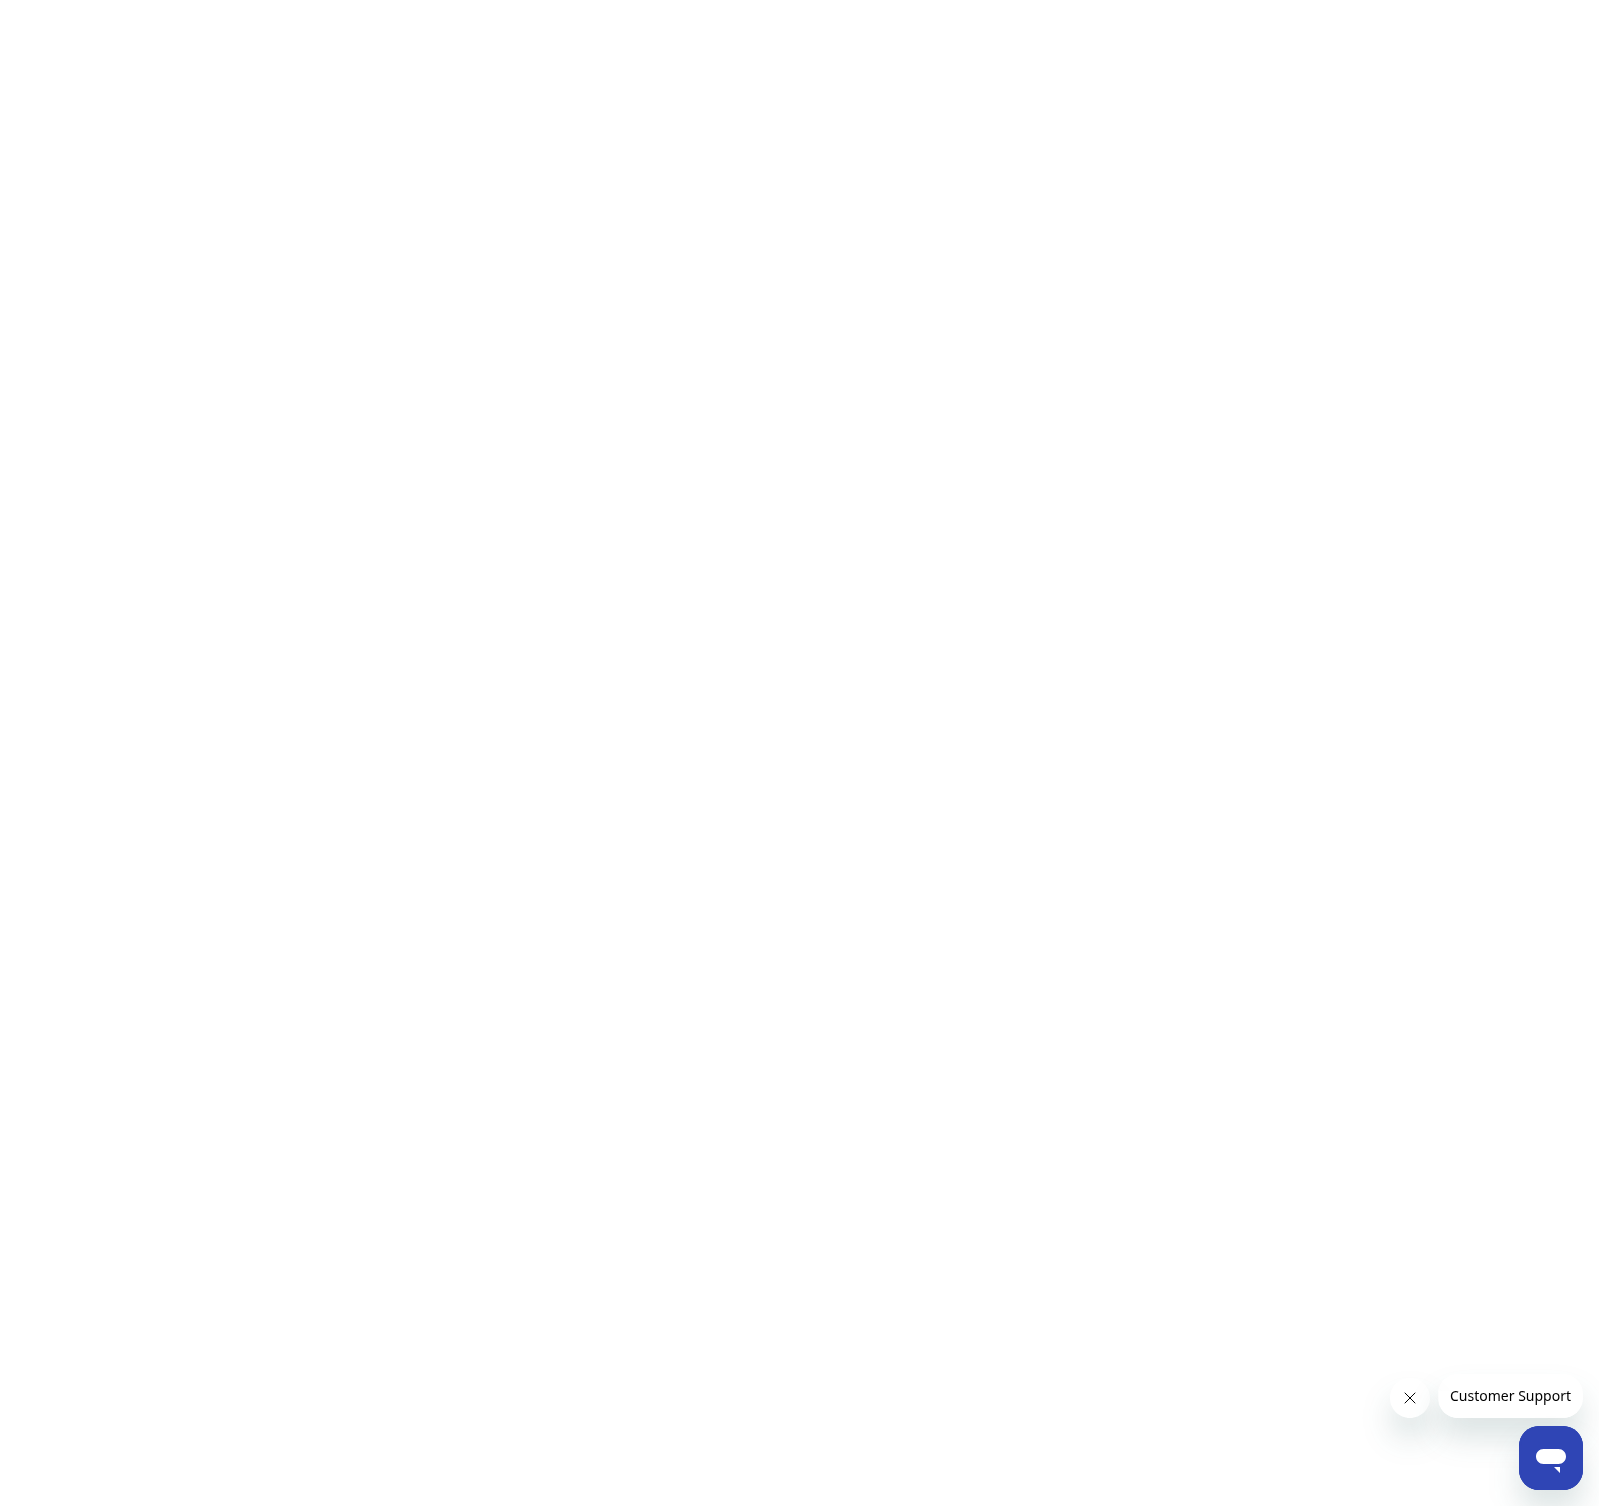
<svg xmlns="http://www.w3.org/2000/svg" xmlns:xlink="http://www.w3.org/1999/xlink" width="1599" height="1506" viewBox="0 0 1599 1506">
<defs>
<clipPath id="clip1"><path d="M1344 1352H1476V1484H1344ZM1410 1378C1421 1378 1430 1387 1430 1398C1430 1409 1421 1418 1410 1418C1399 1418 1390 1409 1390 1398C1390 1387 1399 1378 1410 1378Z" clip-rule="evenodd"/></clipPath>
<clipPath id="clip2"><path d="M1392 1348H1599V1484H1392ZM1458 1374H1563C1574 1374 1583 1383 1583 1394V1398C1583 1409 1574 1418 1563 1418H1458C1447 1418 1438 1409 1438 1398V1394C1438 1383 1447 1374 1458 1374Z" clip-rule="evenodd"/></clipPath>
</defs>
<rect width="100%" height="100%" fill="#ffffff"/>
<g clip-path="url(#clip1)">
<rect fill="#17494d" fill-opacity="0.15" filter="blur(15px)" x="1390" y="1398" width="40" height="40" rx="20"/>
</g>
<image xlink:href="image1.png" x="1404" y="1392" width="12" height="12"/>
<g clip-path="url(#clip2)">
<rect fill="#17494d" fill-opacity="0.15" filter="blur(15px)" x="1438" y="1394" width="145" height="44" rx="20"/>
</g>
<image xlink:href="image0.png" x="1439" y="1391" width="138" height="27"/>
<rect fill="#17494d" fill-opacity="0.15" filter="blur(15px)" x="1519" y="1446" width="64" height="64" rx="20"/>
<image xlink:href="image2.png" x="1519" y="1426" width="64" height="64"/>
</svg>
